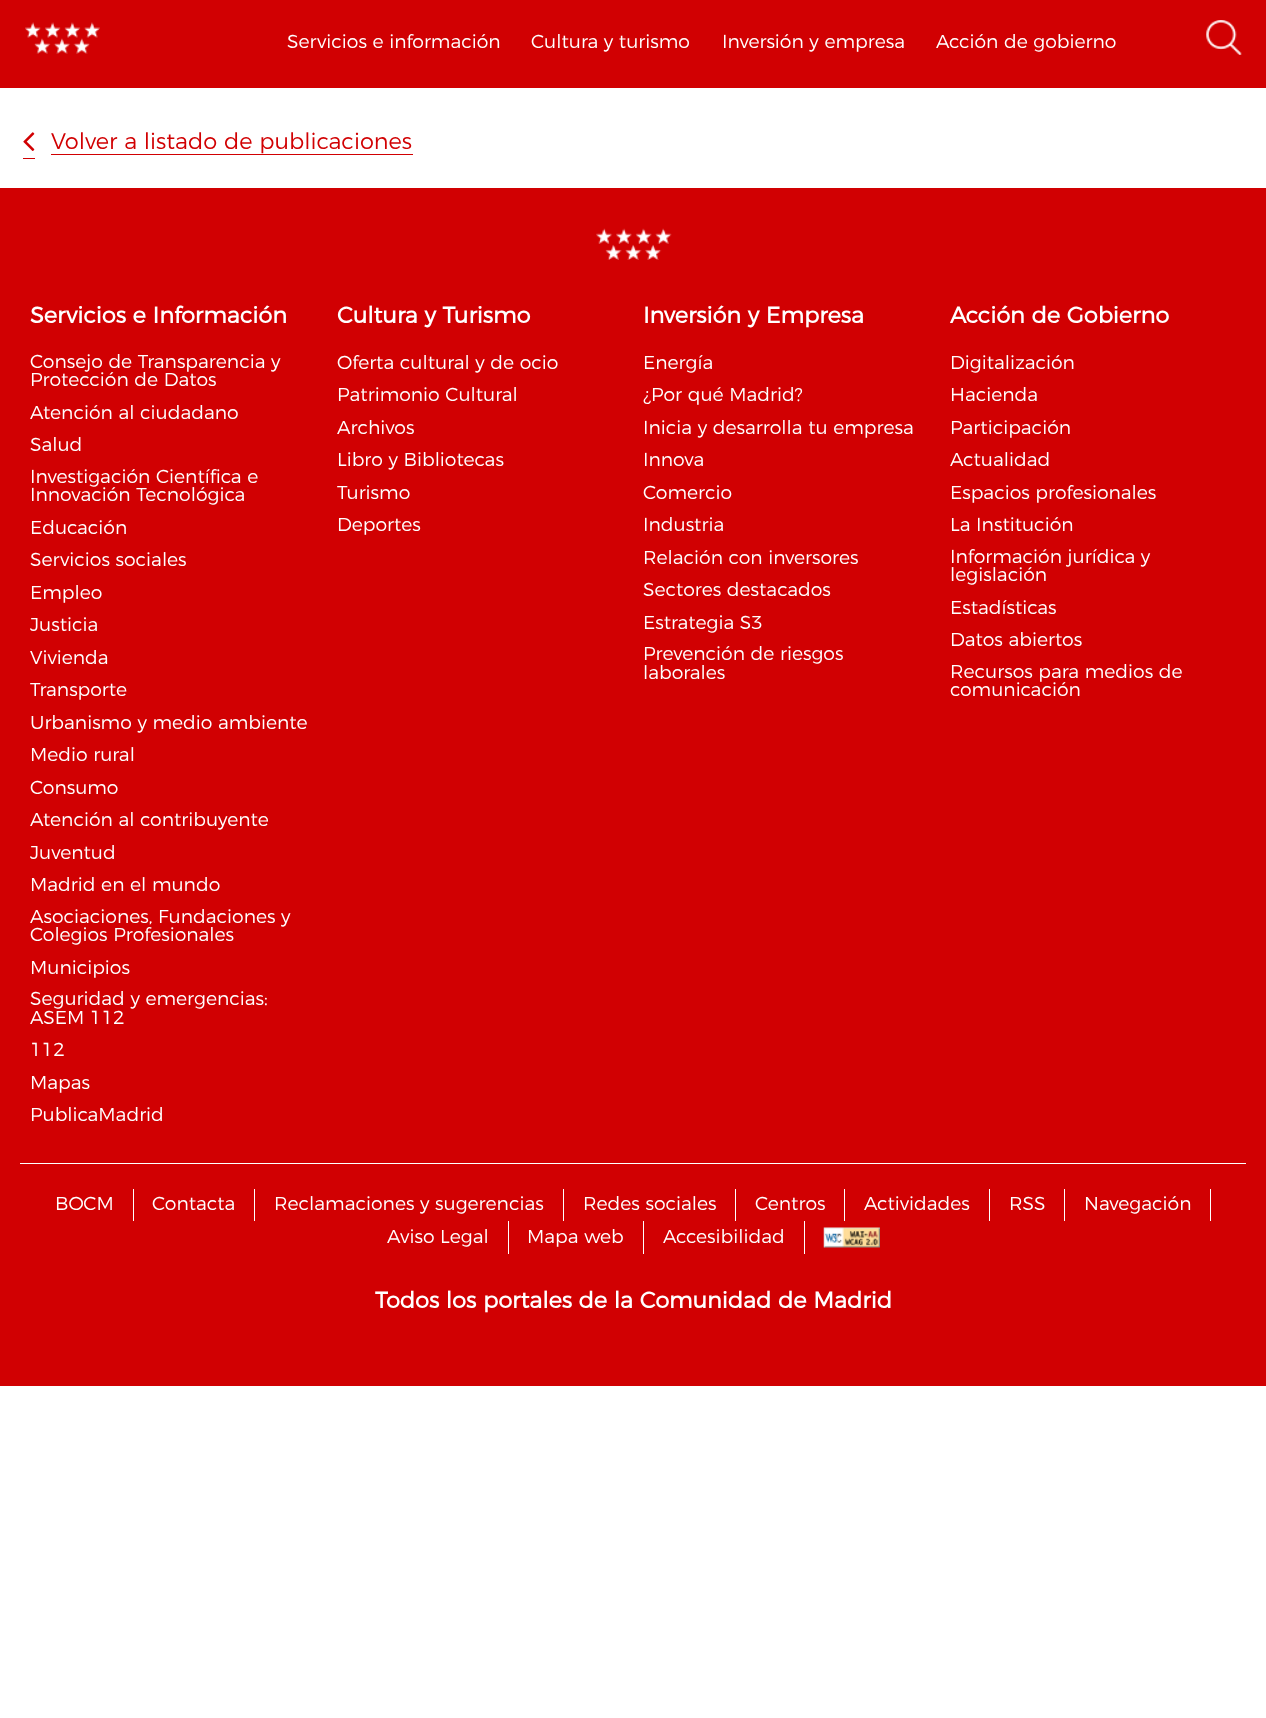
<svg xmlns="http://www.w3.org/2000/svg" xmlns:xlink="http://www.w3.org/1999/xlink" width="1266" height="1718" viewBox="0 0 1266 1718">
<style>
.cls-1{font:300 18.75px Montserrat;fill:#ffffff}
.cls-2{font:300 22.5px Montserrat;fill:#d10002}
.cls-3{font:bold 22.5px Montserrat;fill:#ffffff}
</style>
<rect width="100%" height="100%" fill="#ffffff"/>
<rect fill="#d10002" x="0" y="0" width="1266" height="88"/>
<image xlink:href="image0.png" x="25" y="22" width="75" height="32"/>
<image xlink:href="image1.png" x="1206" y="20" width="36" height="35"/>
<image xlink:href="image2.png" x="23" y="132" width="12" height="19"/>
<rect fill="#d10002" x="51" y="154" width="362" height="1"/>
<rect fill="#d10002" x="23" y="158" width="12" height="1"/>
<rect fill="#d10002" x="0" y="188" width="1266" height="1198"/>
<image xlink:href="image3.png" x="596" y="228" width="76" height="32"/>
<rect fill="#ffffff" x="20" y="1163" width="1226" height="1"/>
<rect fill="#ffffff" x="133" y="1189" width="1" height="32"/>
<rect fill="#ffffff" x="254" y="1189" width="1" height="32"/>
<rect fill="#ffffff" x="563" y="1189" width="1" height="32"/>
<rect fill="#ffffff" x="735" y="1189" width="1" height="32"/>
<rect fill="#ffffff" x="844" y="1189" width="1" height="32"/>
<rect fill="#ffffff" x="989" y="1189" width="1" height="32"/>
<rect fill="#ffffff" x="1064" y="1189" width="1" height="32"/>
<rect fill="#ffffff" x="1210" y="1189" width="1" height="32"/>
<rect fill="#ffffff" x="508" y="1221" width="1" height="33"/>
<rect fill="#ffffff" x="643" y="1221" width="1" height="33"/>
<rect fill="#ffffff" x="804" y="1221" width="1" height="33"/>
<image xlink:href="image4.png" x="823" y="1227" width="57" height="21"/>
<text class="cls-1" x="287" y="48">Servicios e información</text>
<text class="cls-1" x="531" y="48">Cultura y turismo</text>
<text class="cls-1" x="722" y="48">Inversión y empresa</text>
<text class="cls-1" x="936" y="48">Acción de gobierno</text>
<text class="cls-2" x="51" y="149">Volver a listado de publicaciones</text>
<text class="cls-3" x="30" y="323">Servicios e Información</text>
<text class="cls-1"><tspan x="30" y="368">Consejo de Transparencia y</tspan><tspan x="30" y="386">Protección de Datos</tspan><tspan x="30" y="419">Atención al ciudadano</tspan><tspan x="30" y="451">Salud</tspan><tspan x="30" y="483">Investigación Científica e</tspan><tspan x="30" y="501">Innovación Tecnológica</tspan><tspan x="30" y="534">Educación</tspan><tspan x="30" y="566">Servicios sociales</tspan><tspan x="30" y="599">Empleo</tspan><tspan x="30" y="631">Justicia</tspan><tspan x="30" y="664">Vivienda</tspan><tspan x="30" y="696">Transporte</tspan><tspan x="30" y="729">Urbanismo y medio ambiente</tspan><tspan x="30" y="761">Medio rural</tspan><tspan x="30" y="794">Consumo</tspan><tspan x="30" y="826">Atención al contribuyente</tspan><tspan x="30" y="859">Juventud</tspan><tspan x="30" y="891">Madrid en el mundo</tspan><tspan x="30" y="923">Asociaciones, Fundaciones y</tspan><tspan x="30" y="941">Colegios Profesionales</tspan><tspan x="30" y="974">Municipios</tspan><tspan x="30" y="1005">Seguridad y emergencias:</tspan><tspan x="30" y="1024">ASEM 112</tspan><tspan x="30" y="1056">112</tspan><tspan x="30" y="1089">Mapas</tspan><tspan x="30" y="1121">PublicaMadrid</tspan></text>
<text class="cls-3" x="337" y="323">Cultura y Turismo</text>
<text class="cls-1"><tspan x="337" y="369">Oferta cultural y de ocio</tspan><tspan x="337" y="401">Patrimonio Cultural</tspan><tspan x="337" y="434">Archivos</tspan><tspan x="337" y="466">Libro y Bibliotecas</tspan><tspan x="337" y="499">Turismo</tspan><tspan x="337" y="531">Deportes</tspan></text>
<text class="cls-3" x="643" y="323">Inversión y Empresa</text>
<text class="cls-1"><tspan x="643" y="369">Energía</tspan><tspan x="643" y="401">¿Por qué Madrid?</tspan><tspan x="643" y="434">Inicia y desarrolla tu empresa</tspan><tspan x="643" y="466">Innova</tspan><tspan x="643" y="499">Comercio</tspan><tspan x="643" y="531">Industria</tspan><tspan x="643" y="564">Relación con inversores</tspan><tspan x="643" y="596">Sectores destacados</tspan><tspan x="643" y="629">Estrategia S3</tspan><tspan x="643" y="660">Prevención de riesgos</tspan><tspan x="643" y="679">laborales</tspan></text>
<text class="cls-3" x="950" y="323">Acción de Gobierno</text>
<text class="cls-1"><tspan x="950" y="369">Digitalización</tspan><tspan x="950" y="401">Hacienda</tspan><tspan x="950" y="434">Participación</tspan><tspan x="950" y="466">Actualidad</tspan><tspan x="950" y="499">Espacios profesionales</tspan><tspan x="950" y="531">La Institución</tspan><tspan x="950" y="563">Información jurídica y</tspan><tspan x="950" y="581">legislación</tspan><tspan x="950" y="614">Estadísticas</tspan><tspan x="950" y="646">Datos abiertos</tspan><tspan x="950" y="678">Recursos para medios de</tspan><tspan x="950" y="696">comunicación</tspan></text>
<text class="cls-1" x="55" y="1210">BOCM</text>
<text class="cls-1" x="152" y="1210">Contacta</text>
<text class="cls-1" x="274" y="1210">Reclamaciones y sugerencias</text>
<text class="cls-1" x="583" y="1210">Redes sociales</text>
<text class="cls-1" x="755" y="1210">Centros</text>
<text class="cls-1" x="864" y="1210">Actividades</text>
<text class="cls-1" x="1009" y="1210">RSS</text>
<text class="cls-1" x="1084" y="1210">Navegación</text>
<text class="cls-1" x="387" y="1243">Aviso Legal</text>
<text class="cls-1" x="527" y="1243">Mapa web</text>
<text class="cls-1" x="663" y="1243">Accesibilidad</text>
<text class="cls-3" x="375" y="1308">Todos los portales de la Comunidad de Madrid</text>
</svg>
